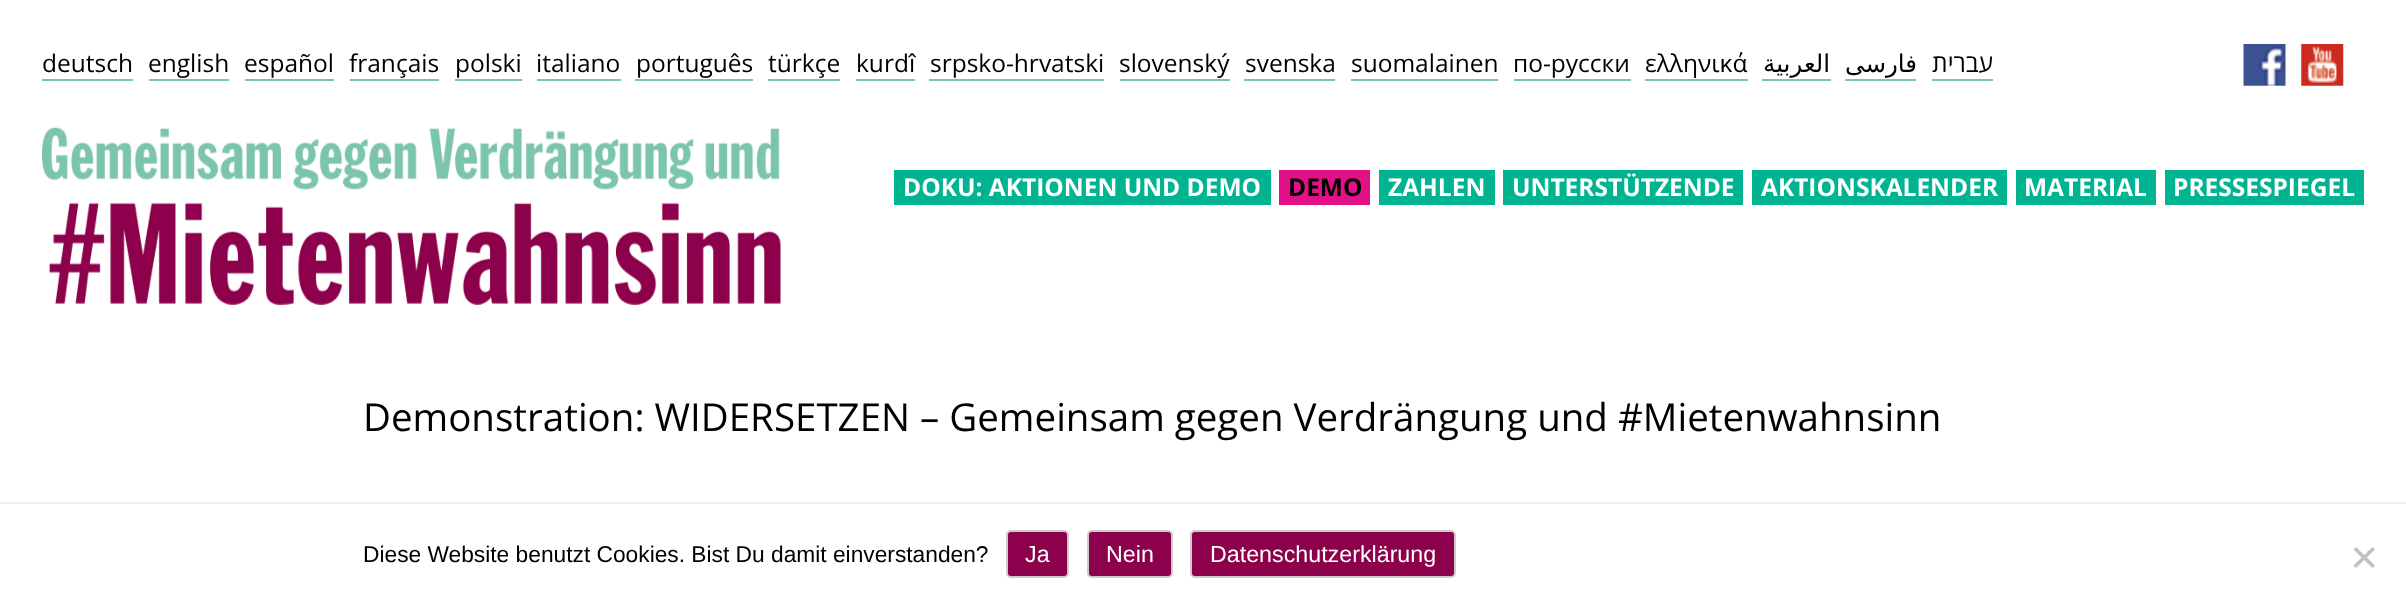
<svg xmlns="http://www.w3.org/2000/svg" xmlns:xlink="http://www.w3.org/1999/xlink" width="2406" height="608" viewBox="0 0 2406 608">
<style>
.cls-1{font:24.5px Open Sans;fill:#000000}
.cls-2{font:24.5px DejaVu Sans;direction:rtl;fill:#000000}
.cls-3{font:24.5px Open Sans;direction:rtl;fill:#000000}
.cls-4{font:bold 24.5px Open Sans;fill:#ffffff}
.cls-5{font:bold 24.5px Open Sans;fill:#000000}
.cls-6{font:38.5px Open Sans;fill:#000000}
.cls-7{font:22.75px Liberation Sans;fill:#000000}
.cls-8{font:23.25px Liberation Sans;fill:#ffffff}
</style>
<rect width="100%" height="100%" fill="#ffffff"/>
<rect fill="#7bc4ac" x="42" y="79" width="91" height="2"/>
<rect fill="#7bc4ac" x="149" y="79" width="80" height="2"/>
<rect fill="#7bc4ac" x="245" y="79" width="89" height="2"/>
<rect fill="#7bc4ac" x="350" y="79" width="89" height="2"/>
<rect fill="#7bc4ac" x="455" y="79" width="67" height="2"/>
<rect fill="#7bc4ac" x="537" y="79" width="84" height="2"/>
<rect fill="#7bc4ac" x="635" y="79" width="118" height="2"/>
<rect fill="#7bc4ac" x="768" y="79" width="72" height="2"/>
<rect fill="#7bc4ac" x="856" y="79" width="59" height="2"/>
<rect fill="#7bc4ac" x="929" y="79" width="175" height="2"/>
<rect fill="#7bc4ac" x="1120" y="79" width="110" height="2"/>
<rect fill="#7bc4ac" x="1244" y="79" width="91" height="2"/>
<rect fill="#7bc4ac" x="1351" y="79" width="147" height="2"/>
<rect fill="#7bc4ac" x="1514" y="79" width="117" height="2"/>
<rect fill="#7bc4ac" x="1645" y="79" width="103" height="2"/>
<rect fill="#7bc4ac" x="1762" y="79" width="69" height="2"/>
<rect fill="#7bc4ac" x="1845" y="79" width="71" height="2"/>
<rect fill="#7bc4ac" x="1932" y="79" width="61" height="2"/>
<image xlink:href="image0.png" x="2243" y="44" width="43" height="42"/>
<image xlink:href="image1.png" x="2301" y="44" width="43" height="42"/>
<image xlink:href="image2.png" x="42" y="127" width="739" height="178"/>
<rect fill="#00b492" x="894" y="170" width="377" height="35"/>
<rect fill="#e21187" x="1279" y="170" width="91" height="35"/>
<rect fill="#00b492" x="1379" y="170" width="116" height="35"/>
<rect fill="#00b492" x="1503" y="170" width="240" height="35"/>
<rect fill="#00b492" x="1752" y="170" width="255" height="35"/>
<rect fill="#00b492" x="2016" y="170" width="140" height="35"/>
<rect fill="#00b492" x="2165" y="170" width="199" height="35"/>
<rect fill="#ededed" x="0" y="502" width="2406" height="2"/>
<rect fill="#8d004c" stroke="#cccccc" stroke-width="2" x="1007" y="531" width="61" height="46" rx="4"/>
<rect fill="#8d004c" stroke="#cccccc" stroke-width="2" x="1088" y="531" width="84" height="46" rx="4"/>
<rect fill="#8d004c" stroke="#cccccc" stroke-width="2" x="1191" y="531" width="264" height="46" rx="4"/>
<path fill="#c0c0c0" d="M2372.5 547L2375 549.5L2356 568L2353.5 565.5Z"/>
<path fill="#c0c0c0" d="M2353.5 549.5L2356 547L2375 565.5L2372.5 568Z"/>
<text class="cls-1" x="42" y="72">deutsch</text>
<text class="cls-1" x="148" y="72">english</text>
<text class="cls-1" x="244" y="72">español</text>
<text class="cls-1" x="349" y="72">français</text>
<text class="cls-1" x="455" y="72">polski</text>
<text class="cls-1" x="536" y="72">italiano</text>
<text class="cls-1" x="636" y="72">português</text>
<text class="cls-1" x="768" y="72">türkçe</text>
<text class="cls-1" x="856" y="72">kurdî</text>
<text class="cls-1" x="930" y="72">srpsko-hrvatski</text>
<text class="cls-1" x="1119" y="72">slovenský</text>
<text class="cls-1" x="1245" y="72">svenska</text>
<text class="cls-1" x="1351" y="72">suomalainen</text>
<text class="cls-1" x="1513" y="72">по-русски</text>
<text class="cls-1" x="1645" y="72">ελληνικά</text>
<text class="cls-2" x="1830" y="72">العربية</text>
<text class="cls-2" x="1917" y="72">فارسی</text>
<text class="cls-3" x="1993" y="72">עברית</text>
<text class="cls-4" x="903" y="196">DOKU: AKTIONEN UND DEMO</text>
<text class="cls-5" x="1288" y="196">DEMO</text>
<text class="cls-4" x="1388" y="196">ZAHLEN</text>
<text class="cls-4" x="1512" y="196">UNTERSTÜTZENDE</text>
<text class="cls-4" x="1761" y="196">AKTIONSKALENDER</text>
<text class="cls-4" x="2024" y="196">MATERIAL</text>
<text class="cls-4" x="2173" y="196">PRESSESPIEGEL</text>
<text class="cls-6" x="363" y="431">Demonstration: WIDERSETZEN – Gemeinsam gegen Verdrängung und #Mietenwahnsinn</text>
<text class="cls-7" x="363" y="562">Diese Website benutzt Cookies. Bist Du damit einverstanden?</text>
<text class="cls-8" x="1025" y="562">Ja</text>
<text class="cls-8" x="1106" y="562">Nein</text>
<text class="cls-8" x="1210" y="562">Datenschutzerklärung</text>
</svg>
